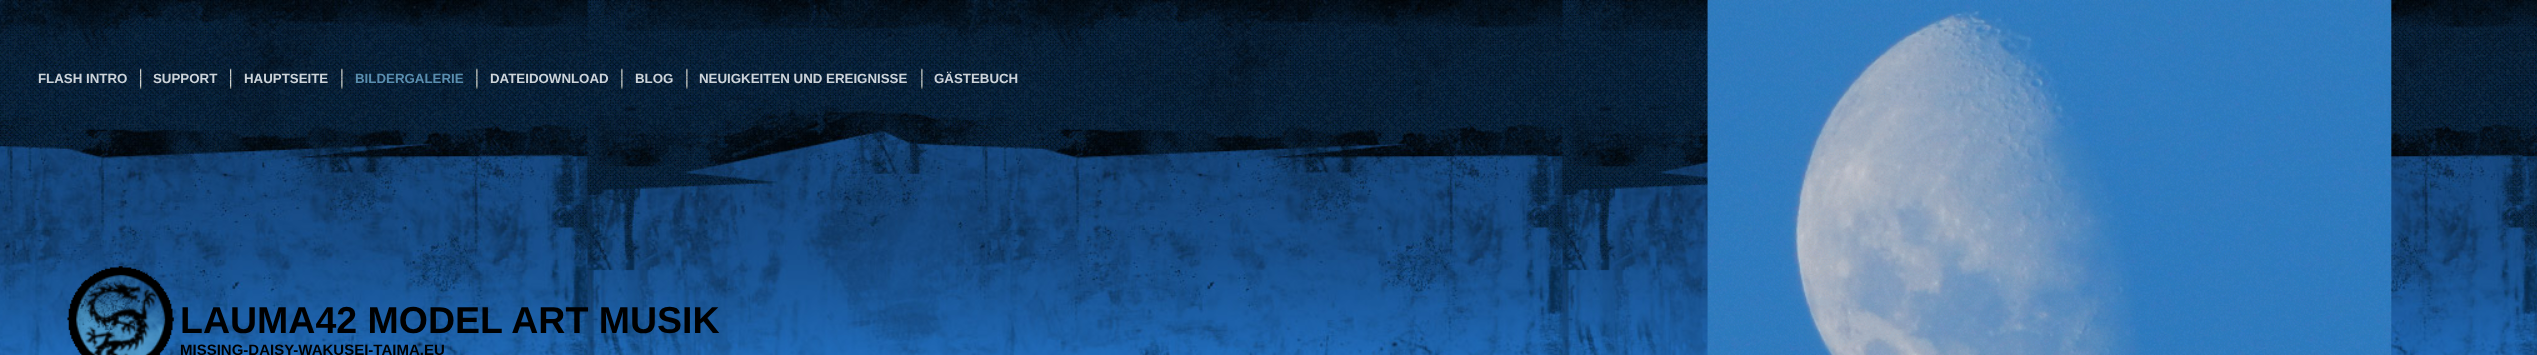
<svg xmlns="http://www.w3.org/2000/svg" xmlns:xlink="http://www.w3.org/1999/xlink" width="2537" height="355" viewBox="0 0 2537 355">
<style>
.cls-1{font:bold 13.3px Liberation Sans;fill:#cdd4da}
.cls-2{font:bold 13.3px Liberation Sans;fill:#5a8eaf}
.cls-3{font:bold 37.5px Liberation Sans;fill:#000000}
.cls-4{font:bold 15px Liberation Sans;fill:#000000}
</style>
<rect width="100%" height="100%" fill="#ffffff"/>
<image xlink:href="image0.png" x="0" y="0" width="2537" height="355"/>
<image xlink:href="image1.png" x="1707" y="0" width="685" height="355"/>
<image xlink:href="image2.png" x="140" y="68" width="2" height="21"/>
<image xlink:href="image3.png" x="230" y="68" width="2" height="21"/>
<image xlink:href="image4.png" x="341" y="68" width="2" height="21"/>
<image xlink:href="image5.png" x="476" y="68" width="2" height="21"/>
<image xlink:href="image6.png" x="621" y="68" width="2" height="21"/>
<image xlink:href="image7.png" x="686" y="68" width="2" height="21"/>
<image xlink:href="image8.png" x="921" y="68" width="2" height="21"/>
<image xlink:href="image9.png" x="67" y="266" width="107" height="89"/>
<text class="cls-1" x="38" y="83">FLASH INTRO</text>
<text class="cls-1" x="153" y="83">SUPPORT</text>
<text class="cls-1" x="244" y="83">HAUPTSEITE</text>
<text class="cls-2" x="355" y="83">BILDERGALERIE</text>
<text class="cls-1" x="490" y="83">DATEIDOWNLOAD</text>
<text class="cls-1" x="635" y="83">BLOG</text>
<text class="cls-1" x="699" y="83">NEUIGKEITEN UND EREIGNISSE</text>
<text class="cls-1" x="934" y="83">GÄSTEBUCH</text>
<text class="cls-3" x="180" y="333">LAUMA42 MODEL ART MUSIK</text>
<text class="cls-4" x="180" y="355">MISSING-DAISY-WAKUSEI-TAIMA.EU</text>
</svg>
